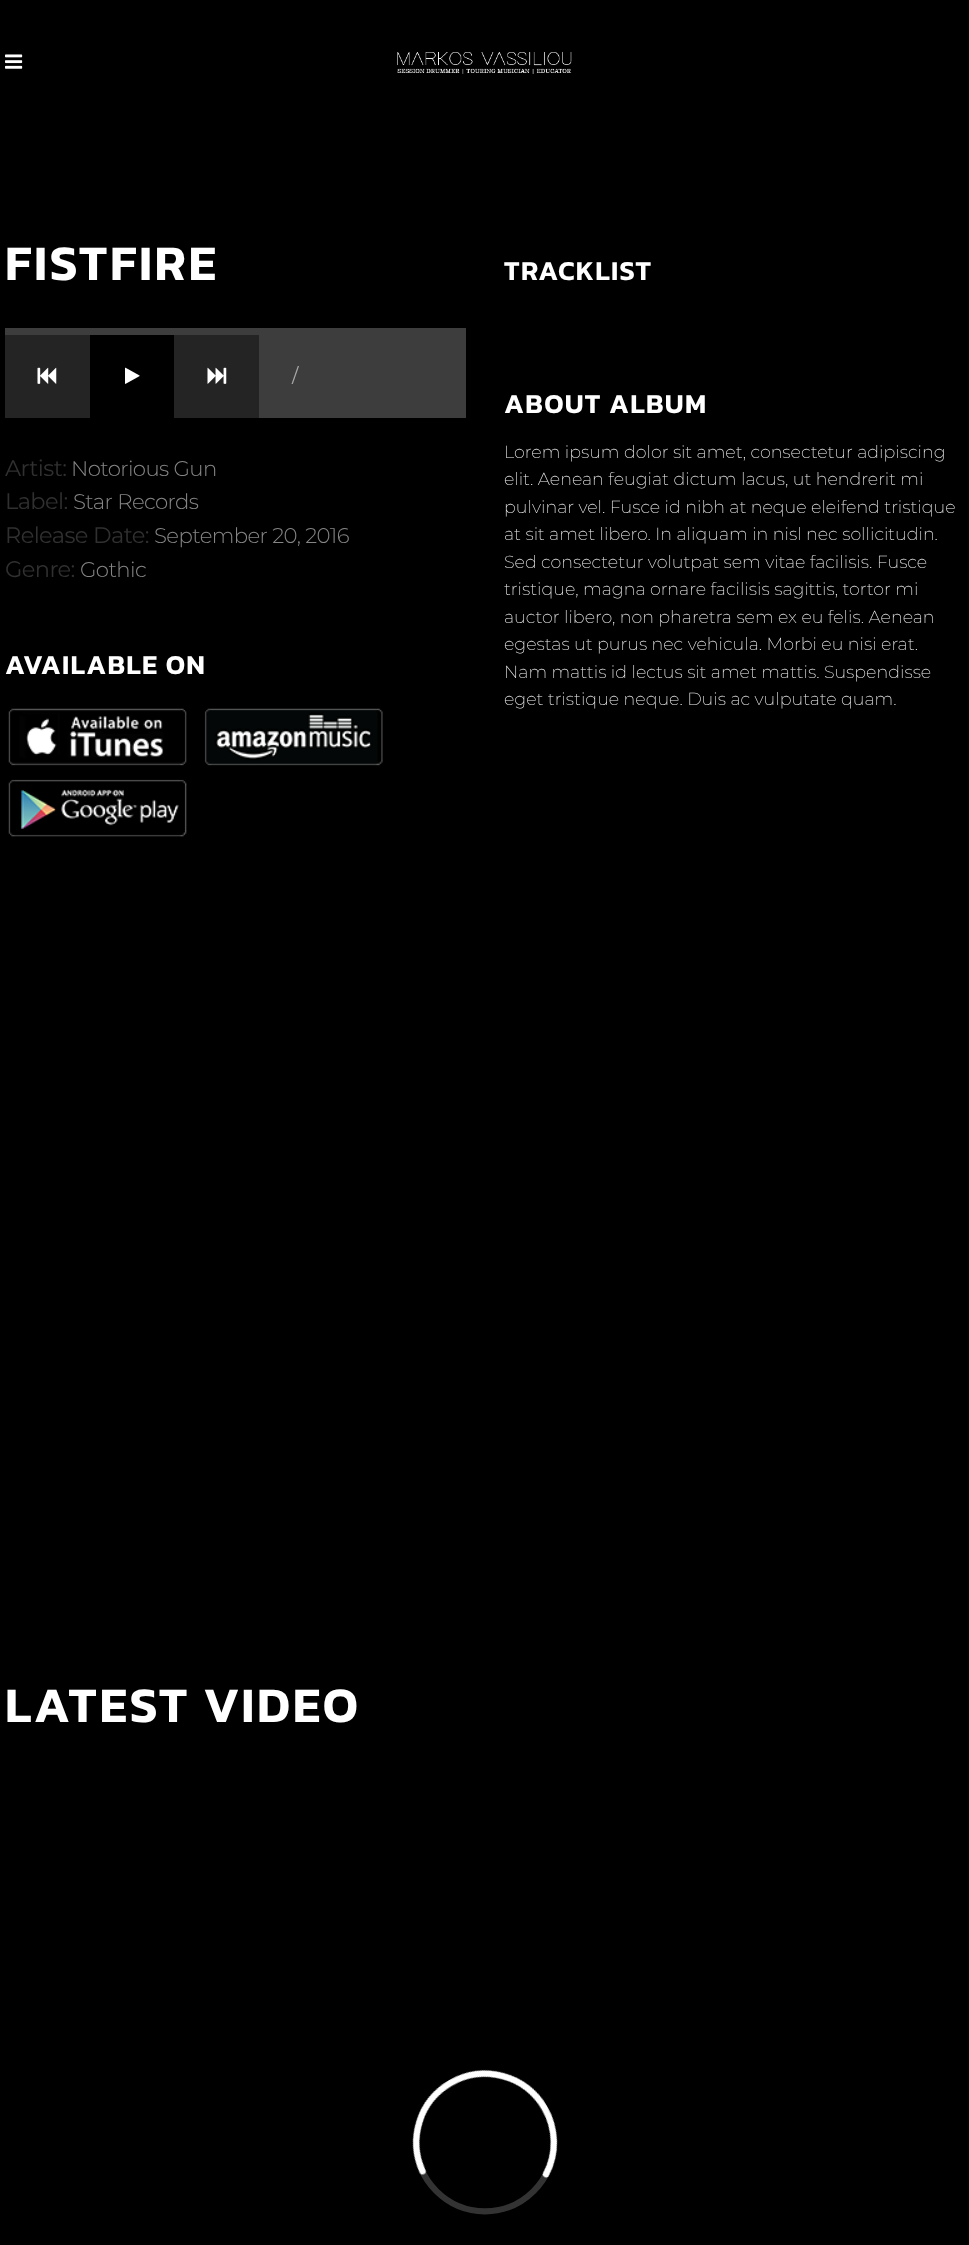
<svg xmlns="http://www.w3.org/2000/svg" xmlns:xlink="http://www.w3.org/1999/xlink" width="969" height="2245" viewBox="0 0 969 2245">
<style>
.cls-1{font:600 50px Kanit;letter-spacing:2.5px;fill:#ffffff}
.cls-2{font:19px Montserrat;fill:#aaaaaa}
.cls-3{font:22.5px Montserrat;letter-spacing:-0.6px;fill:#303030}
.cls-4{font:300 21.25px Montserrat;letter-spacing:-0.6px;fill:#858585}
.cls-5{font:600 27.5px Kanit;letter-spacing:1.25px;fill:#ffffff}
.cls-6{font:200 17.5px Montserrat;fill:#efefef}
</style>
<rect width="100%" height="100%" fill="#000000"/>
<image xlink:href="image0.png" x="5" y="54" width="18" height="15"/>
<image xlink:href="image1.png" x="397" y="51" width="175" height="23"/>
<rect fill="#3d3d3d" x="5" y="328" width="461" height="90"/>
<rect fill="#242424" x="5" y="335" width="85" height="83"/>
<image xlink:href="image2.png" x="37" y="367" width="20" height="17"/>
<rect fill="#000000" x="90" y="335" width="84" height="83"/>
<image xlink:href="image3.png" x="125" y="367" width="15" height="17"/>
<rect fill="#242424" x="174" y="335" width="85" height="83"/>
<image xlink:href="image4.png" x="207" y="367" width="20" height="17"/>
<image xlink:href="image5.png" x="8" y="708" width="179" height="58"/>
<image xlink:href="image6.png" x="204" y="708" width="179" height="58"/>
<image xlink:href="image7.png" x="8" y="779" width="179" height="58"/>
<image xlink:href="image8.png" x="412" y="2069" width="146" height="146"/>
<text class="cls-1" x="5" y="280">FISTFIRE</text>
<text class="cls-2" x="292" y="382">/</text>
<text class="cls-3" x="5" y="476">Artist:</text>
<text class="cls-4" x="71" y="476">Notorious Gun</text>
<text class="cls-3" x="5" y="509">Label:</text>
<text class="cls-4" x="73" y="509">Star Records</text>
<text class="cls-3" x="5" y="543">Release Date:</text>
<text class="cls-4" x="154" y="543">September 20, 2016</text>
<text class="cls-3" x="5" y="577">Genre:</text>
<text class="cls-4" x="80" y="577">Gothic</text>
<text class="cls-5" x="5" y="674">AVAILABLE ON</text>
<text class="cls-5" x="504" y="280">TRACKLIST</text>
<text class="cls-5" x="504" y="413">ABOUT ALBUM</text>
<text class="cls-6"><tspan x="504" y="458">Lorem ipsum dolor sit amet, consectetur adipiscing</tspan><tspan x="504" y="485">elit. Aenean feugiat dictum lacus, ut hendrerit mi</tspan><tspan x="504" y="513">pulvinar vel. Fusce id nibh at neque eleifend tristique</tspan><tspan x="504" y="540">at sit amet libero. In aliquam in nisl nec sollicitudin.</tspan><tspan x="504" y="568">Sed consectetur volutpat sem vitae facilisis. Fusce</tspan><tspan x="504" y="595">tristique, magna ornare facilisis sagittis, tortor mi</tspan><tspan x="504" y="623">auctor libero, non pharetra sem ex eu felis. Aenean</tspan><tspan x="504" y="650">egestas ut purus nec vehicula. Morbi eu nisi erat.</tspan><tspan x="504" y="678">Nam mattis id lectus sit amet mattis. Suspendisse</tspan><tspan x="504" y="705">eget tristique neque. Duis ac vulputate quam.</tspan></text>
<text class="cls-1" x="5" y="1722">LATEST VIDEO</text>
</svg>
